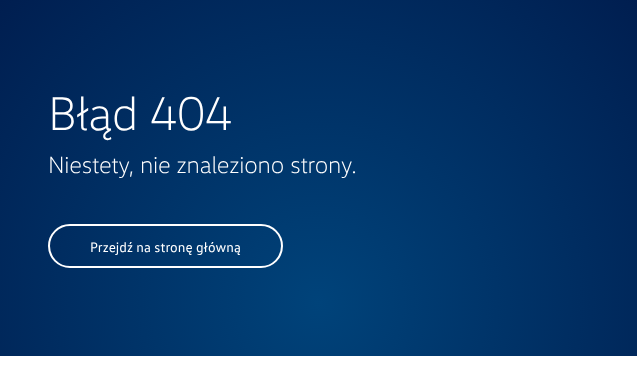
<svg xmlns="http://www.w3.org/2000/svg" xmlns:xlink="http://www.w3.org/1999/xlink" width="637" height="371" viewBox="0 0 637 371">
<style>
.cls-1{font:300 48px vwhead;letter-spacing:-0.75px;fill:#ffffff}
.cls-2{font:300 24px vwhead;letter-spacing:-0.2px;fill:#ffffff}
.cls-3{font:14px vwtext;fill:#ffffff}
</style>
<defs>
<radialGradient id="g1" gradientUnits="userSpaceOnUse" cx="319" cy="303" r="439"><stop offset="0" stop-color="#00437a"/><stop offset="1" stop-color="#001e50"/></radialGradient>
</defs>
<rect width="100%" height="100%" fill="#ffffff"/>
<rect fill="url(#g1)" x="0" y="0" width="637" height="356"/>
<rect fill="none" stroke="#ffffff" stroke-width="2" x="49" y="225" width="233" height="42" rx="21"/>
<text class="cls-1" x="48" y="130">Błąd 404</text>
<text class="cls-2" x="48" y="173">Niestety, nie znaleziono strony.</text>
<text class="cls-3" x="90" y="252">Przejdź na stronę główną</text>
</svg>
